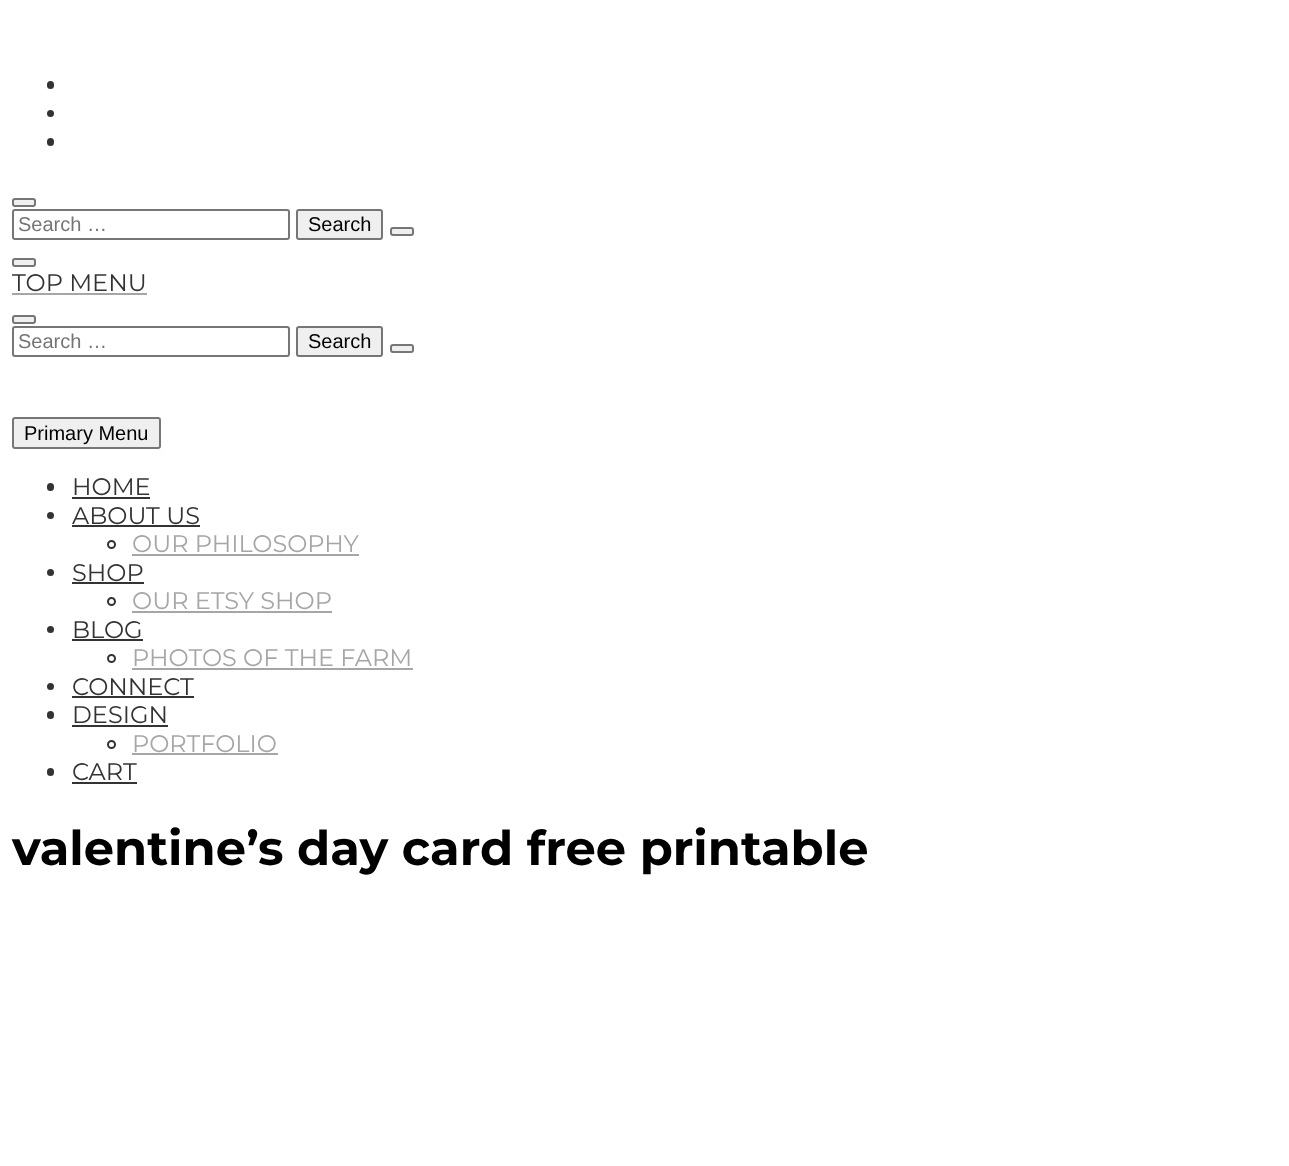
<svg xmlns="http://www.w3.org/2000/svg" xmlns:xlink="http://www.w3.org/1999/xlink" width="1289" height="1166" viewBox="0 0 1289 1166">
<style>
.cls-1{font:20px Liberation Sans;fill:#757575}
.cls-2{font:20px Liberation Sans;fill:#000000}
.cls-3{font:24px Montserrat;fill:#333333}
.cls-4{font:24px Montserrat;fill:#a6a6a6}
.cls-5{font:bold 48px Montserrat;fill:#000000}
</style>
<rect width="100%" height="100%" fill="#ffffff"/>
<rect fill="#333333" x="47" y="81" width="7" height="8" rx="3.5"/>
<circle fill="#333333" cx="50.5" cy="113.5" r="3.5"/>
<rect fill="#333333" x="47" y="138" width="7" height="8" rx="3.5"/>
<rect fill="#efefef" stroke="#767676" stroke-width="2" x="13" y="199" width="22" height="7" rx="2"/>
<rect fill="none" stroke="#767676" stroke-width="2" x="13" y="210" width="276" height="29" rx="2"/>
<rect fill="#efefef" stroke="#767676" stroke-width="2" x="297" y="210" width="85" height="29" rx="2"/>
<rect fill="#efefef" stroke="#767676" stroke-width="2" x="391" y="228" width="22" height="7" rx="2"/>
<rect fill="#efefef" stroke="#767676" stroke-width="2" x="13" y="259" width="22" height="7" rx="2"/>
<rect fill="#a6a6a6" x="12" y="293" width="135" height="2"/>
<rect fill="#efefef" stroke="#767676" stroke-width="2" x="13" y="316" width="22" height="7" rx="2"/>
<rect fill="none" stroke="#767676" stroke-width="2" x="13" y="327" width="276" height="29" rx="2"/>
<rect fill="#efefef" stroke="#767676" stroke-width="2" x="297" y="327" width="85" height="29" rx="2"/>
<rect fill="#efefef" stroke="#767676" stroke-width="2" x="391" y="345" width="22" height="7" rx="2"/>
<rect fill="#efefef" stroke="#767676" stroke-width="2" x="13" y="418" width="147" height="30" rx="2"/>
<rect fill="#333333" x="47" y="483" width="7" height="8" rx="3.5"/>
<rect fill="#333333" x="72" y="497" width="78" height="2"/>
<circle fill="#333333" cx="50.5" cy="515.5" r="3.5"/>
<rect fill="#333333" x="72" y="525" width="128" height="2"/>
<circle fill="none" stroke="#333333" stroke-width="2" cx="111.5" cy="544.5" r="3.5"/>
<rect fill="#a6a6a6" x="132" y="554" width="227" height="2"/>
<circle fill="#333333" cx="50.5" cy="572.5" r="3.5"/>
<rect fill="#333333" x="72" y="582" width="72" height="2"/>
<circle fill="none" stroke="#333333" stroke-width="2" cx="111.5" cy="601.5" r="3.5"/>
<rect fill="#a6a6a6" x="132" y="611" width="200" height="2"/>
<circle fill="#333333" cx="50.5" cy="629.5" r="3.5"/>
<rect fill="#333333" x="72" y="639" width="71" height="2"/>
<circle fill="none" stroke="#333333" stroke-width="2" cx="111.5" cy="658.5" r="3.5"/>
<rect fill="#a6a6a6" x="132" y="668" width="281" height="2"/>
<circle fill="#333333" cx="50.5" cy="686.5" r="3.5"/>
<rect fill="#333333" x="72" y="696" width="122" height="2"/>
<rect fill="#333333" x="47" y="711" width="7" height="8" rx="3.5"/>
<rect fill="#333333" x="72" y="725" width="96" height="2"/>
<circle fill="none" stroke="#333333" stroke-width="2" cx="111.5" cy="744.5" r="3.5"/>
<rect fill="#a6a6a6" x="132" y="753" width="146" height="2"/>
<rect fill="#333333" x="47" y="768" width="7" height="8" rx="3.5"/>
<rect fill="#333333" x="72" y="782" width="65" height="2"/>
<text class="cls-1" x="18" y="231">Search …</text>
<text class="cls-2" x="308" y="231">Search</text>
<text class="cls-3" x="12" y="291">TOP MENU</text>
<text class="cls-1" x="18" y="348">Search …</text>
<text class="cls-2" x="308" y="348">Search</text>
<text class="cls-2" x="24" y="440">Primary Menu</text>
<text class="cls-3"><tspan x="72" y="495">HOME</tspan><tspan x="72" y="524">ABOUT US</tspan></text>
<text class="cls-4" x="132" y="552">OUR PHILOSOPHY</text>
<text class="cls-3" x="72" y="581">SHOP</text>
<text class="cls-4" x="132" y="609">OUR ETSY SHOP</text>
<text class="cls-3" x="72" y="638">BLOG</text>
<text class="cls-4" x="132" y="666">PHOTOS OF THE FARM</text>
<text class="cls-3"><tspan x="72" y="695">CONNECT</tspan><tspan x="72" y="723">DESIGN</tspan></text>
<text class="cls-4" x="132" y="752">PORTFOLIO</text>
<text class="cls-3" x="72" y="780">CART</text>
<text class="cls-5" x="12" y="865">valentine’s day card free printable</text>
</svg>
